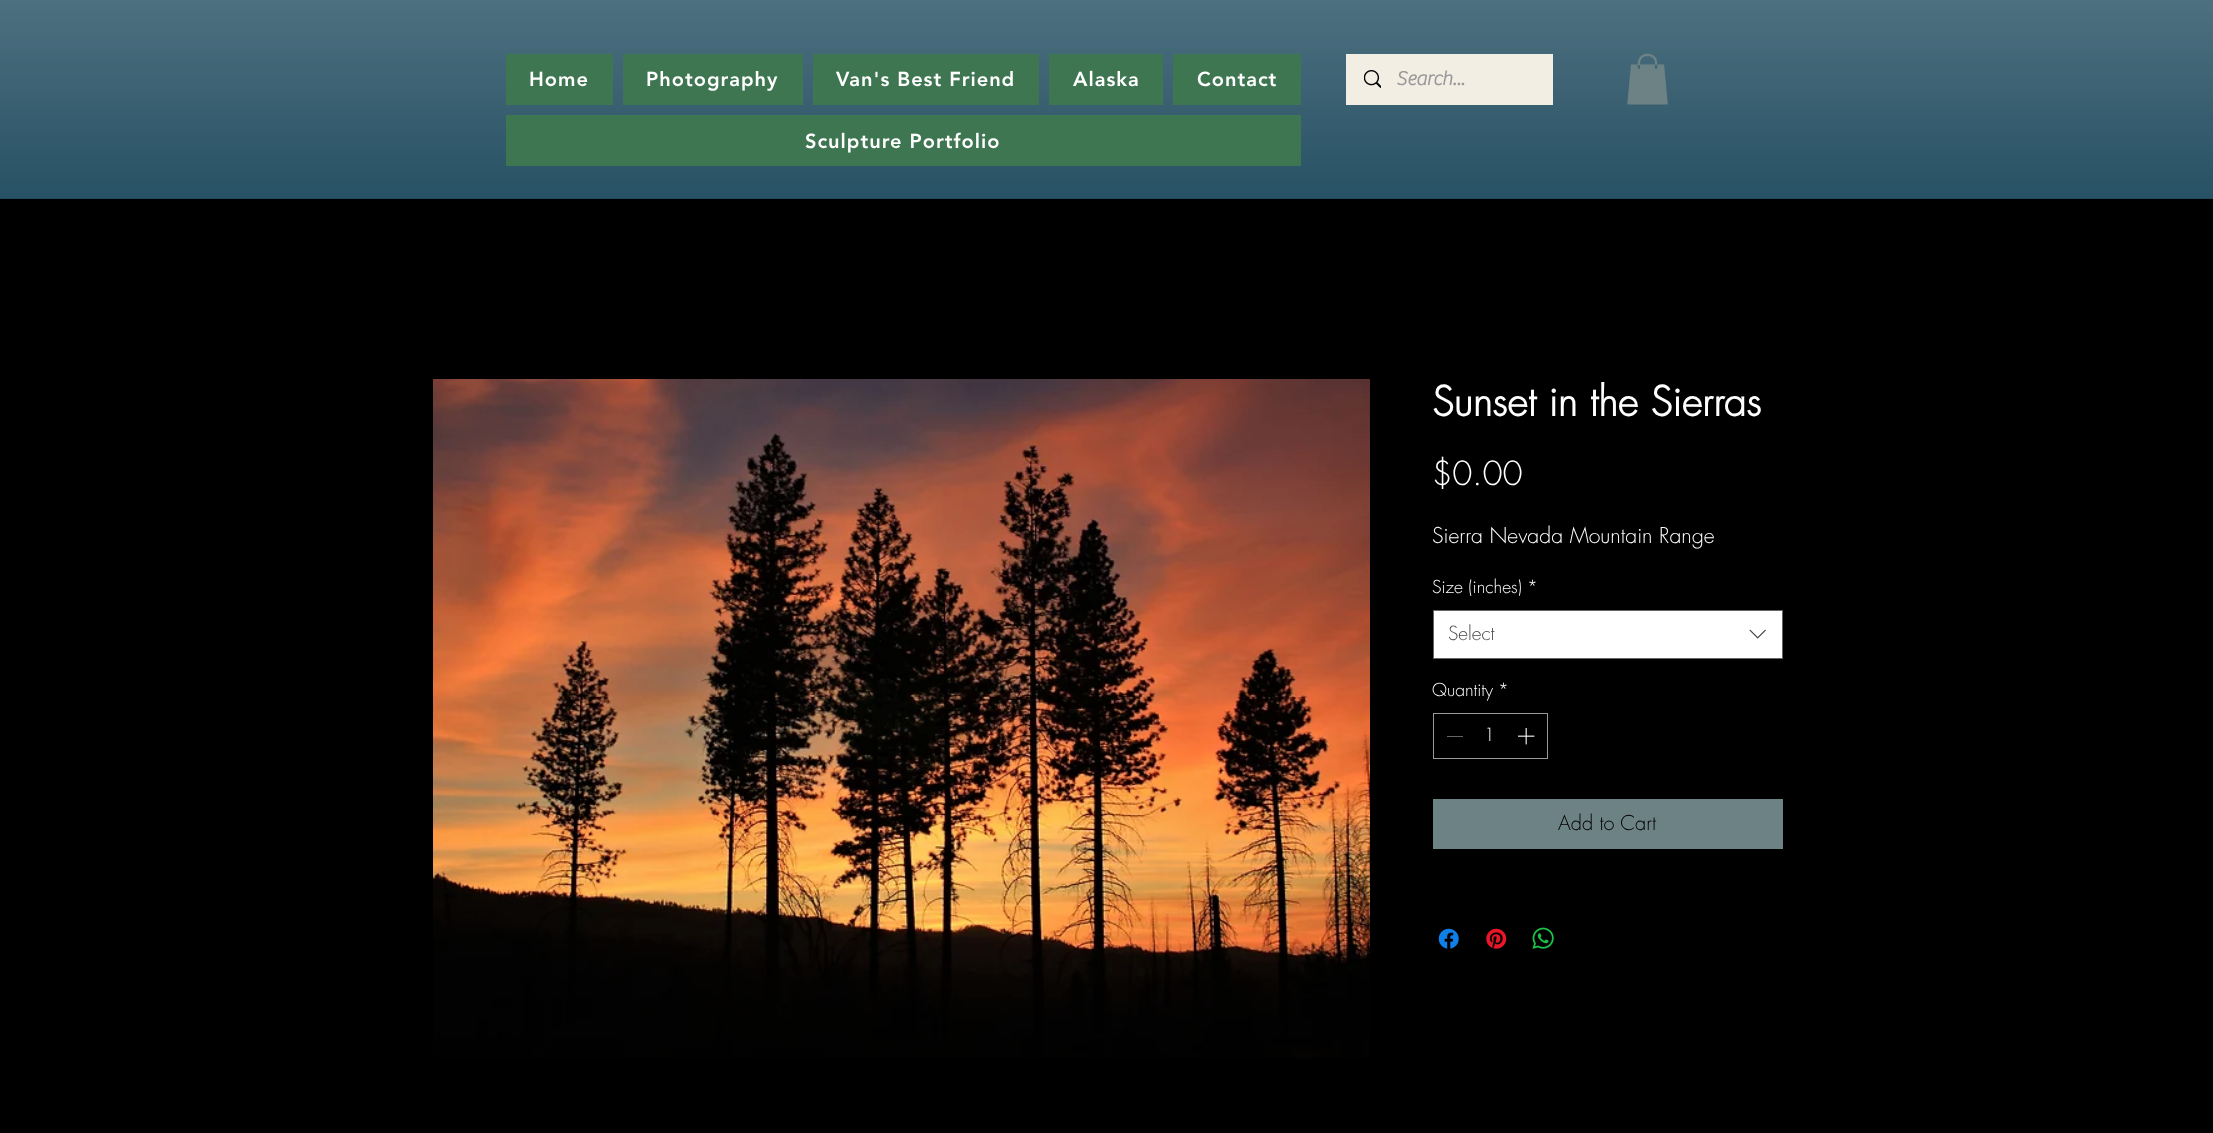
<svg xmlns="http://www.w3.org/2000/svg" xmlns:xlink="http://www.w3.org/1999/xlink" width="2213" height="1133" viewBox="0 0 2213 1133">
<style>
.cls-1{font:900 20px 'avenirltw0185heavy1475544';letter-spacing:1px;fill:#ffffff}
.cls-2{font:bold 20px 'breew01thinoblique';fill:#999999}
.cls-3{font:bold 40px futura;fill:#ffffff}
.cls-4{font:300 32.5px futura;fill:#ffffff}
.cls-5{font:300 21.25px futura;fill:#ffffff}
.cls-6{font:300 17.5px futura;fill:#ffffff}
.cls-7{font:300 19px futura;fill:#444444}
.cls-8{font:300 20px futura;fill:#000000}
</style>
<rect width="100%" height="100%" fill="#103f54"/>
<image xlink:href="image0.png" x="0" y="0" width="2213" height="199"/>
<rect fill="#3f7652" x="506" y="54" width="107" height="51"/>
<rect fill="#3f7652" x="623" y="54" width="180" height="51"/>
<rect fill="#3f7652" x="813" y="54" width="226" height="51"/>
<rect fill="#3f7652" x="1049" y="54" width="114" height="51"/>
<rect fill="#3f7652" x="1173" y="54" width="128" height="51"/>
<rect fill="#3f7652" x="506" y="115" width="795" height="51"/>
<rect fill="#f2eee4" x="1346" y="54" width="207" height="51"/>
<image xlink:href="image1.png" x="1364" y="70" width="17" height="18"/>
<image xlink:href="image2.png" x="1627" y="53" width="41" height="52"/>
<rect fill="#000000" x="0" y="199" width="2213" height="934"/>
<image xlink:href="image3.png" x="433" y="379" width="937" height="679"/>
<rect fill="#ffffff" stroke="#666666" x="1433.5" y="610.5" width="349" height="48"/>
<image xlink:href="image4.png" x="1749" y="629" width="17" height="10"/>
<rect fill="none" stroke="#999999" x="1433.5" y="713.5" width="114" height="45"/>
<rect fill="#646464" x="1447" y="736" width="16" height="1"/>
<image xlink:href="image5.png" x="1518" y="728" width="17" height="17"/>
<rect fill="#6d8285" x="1433" y="799" width="350" height="50"/>
<image xlink:href="image6.png" x="1438" y="928" width="21" height="21"/>
<image xlink:href="image7.png" x="1486" y="928" width="21" height="21"/>
<image xlink:href="image8.png" x="1532" y="927" width="22" height="22"/>
<text class="cls-1" x="529" y="86">Home</text>
<text class="cls-1" x="646" y="86">Photography</text>
<text class="cls-1" x="836" y="86">Van's Best Friend</text>
<text class="cls-1" x="1073" y="86">Alaska</text>
<text class="cls-1" x="1197" y="86">Contact</text>
<text class="cls-1" x="805" y="148">Sculpture Portfolio</text>
<text class="cls-2" x="1396" y="85">Search...</text>
<text class="cls-3" x="1432" y="416">Sunset in the Sierras</text>
<text class="cls-4" x="1432" y="485">$0.00</text>
<text class="cls-5" x="1432" y="543">Sierra Nevada Mountain Range</text>
<text class="cls-6" x="1432" y="593">Size (inches)</text>
<text class="cls-6" x="1527" y="593">*</text>
<text class="cls-7" x="1448" y="640">Select</text>
<text class="cls-6" x="1432" y="696">Quantity</text>
<text class="cls-6" x="1498" y="696">*</text>
<text class="cls-6" x="1484" y="741">1</text>
<text class="cls-8" x="1558" y="830">Add to Cart</text>
</svg>
